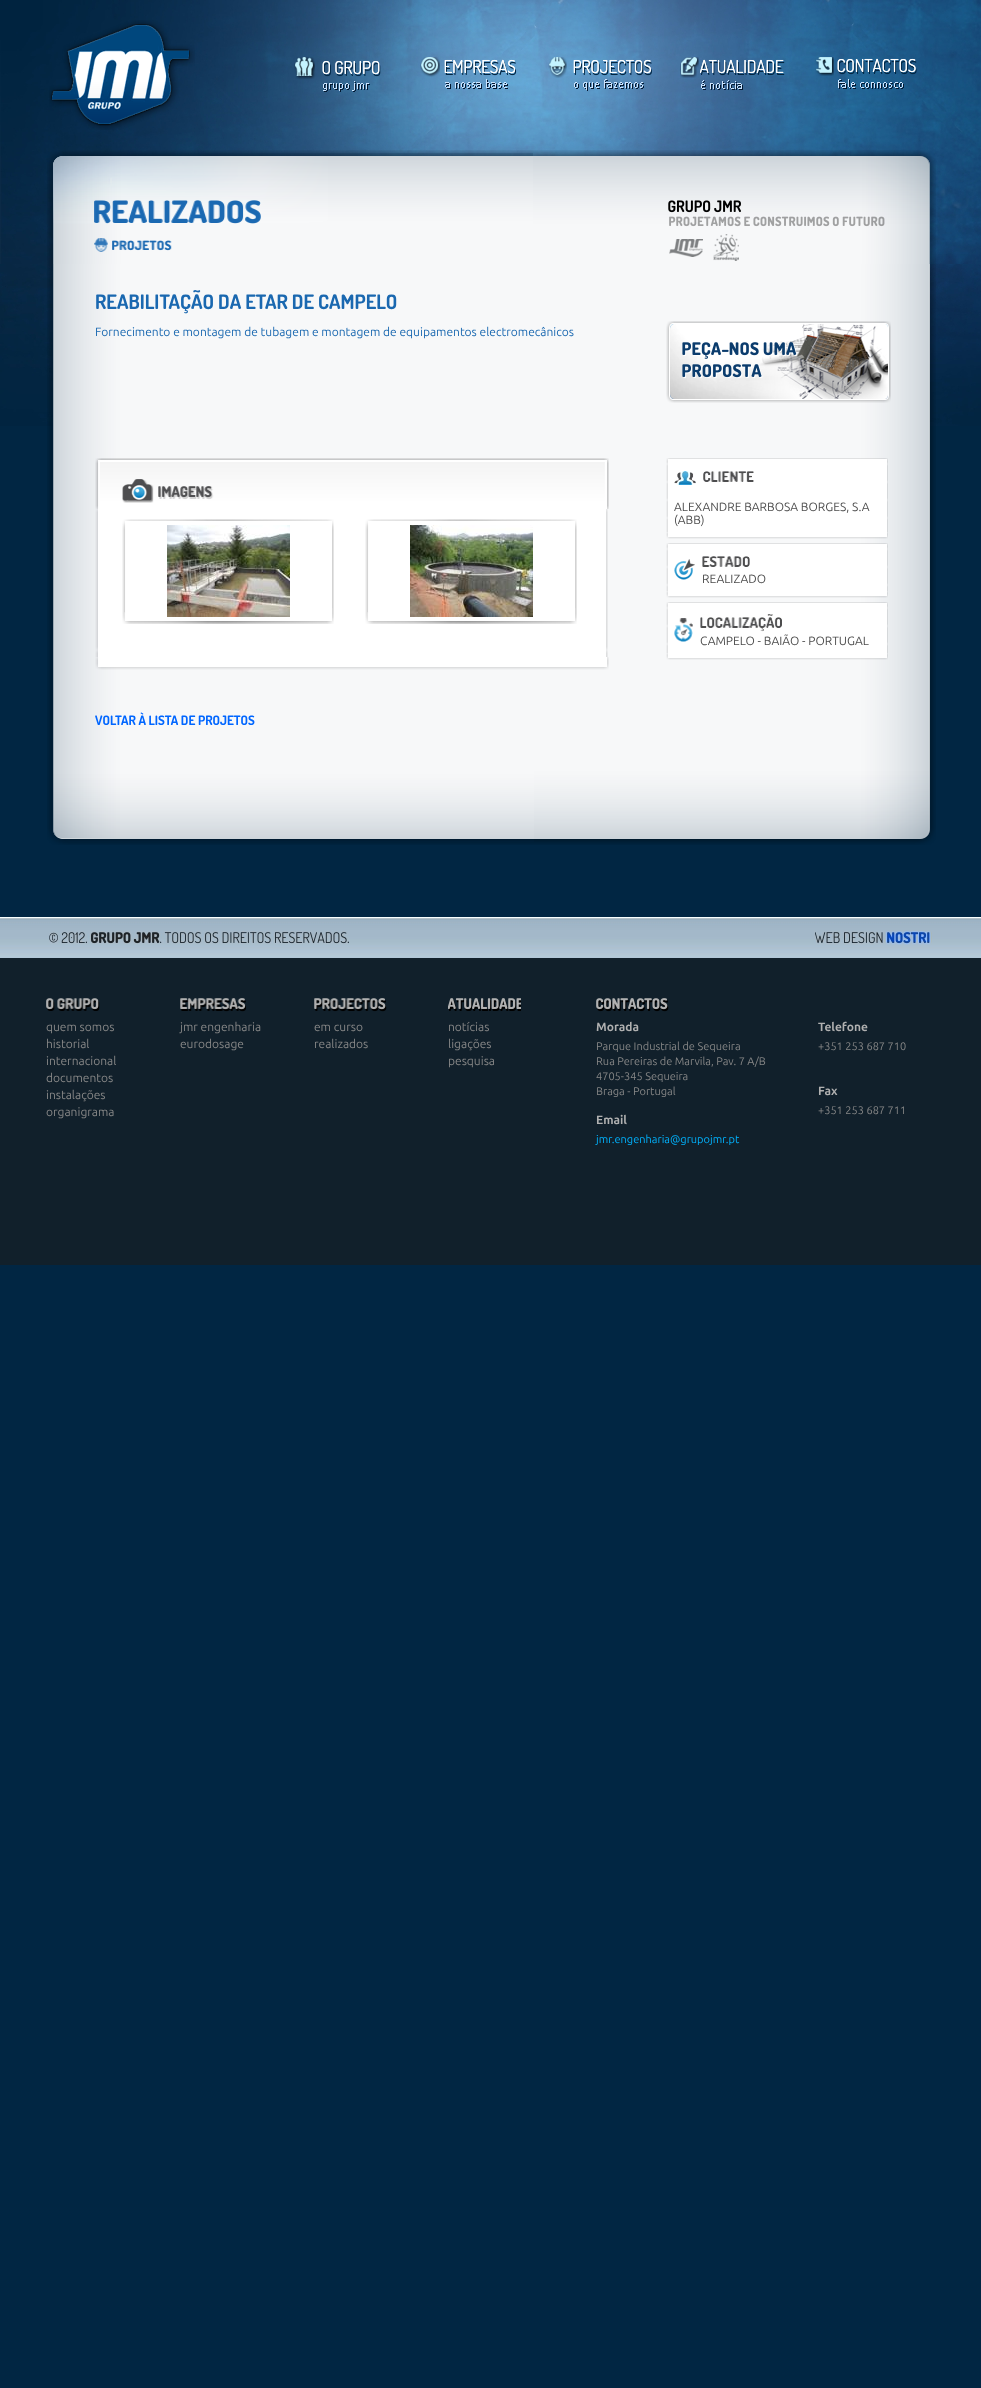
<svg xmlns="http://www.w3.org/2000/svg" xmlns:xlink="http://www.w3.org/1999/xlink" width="981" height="2388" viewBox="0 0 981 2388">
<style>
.cls-1{font:bold 20px Dosis;fill:#1a68b0}
.cls-2{font:12px Ubuntu;fill:#1a68b0}
.cls-3{font:bold 13px Dosis;fill:#0066ff}
.cls-4{font:12px Ubuntu;fill:#4d4d4d}
.cls-5{font:12px Ubuntu;fill:#878787}
.cls-6{font:bold 12px Ubuntu;fill:#b1b1b1}
.cls-7{font:11px Ubuntu;fill:#878787}
.cls-8{font:11px Ubuntu;fill:#00b3ff}
</style>
<rect width="100%" height="100%" fill="#012643"/>
<image xlink:href="image0.png" x="0" y="0" width="981" height="264"/>
<image xlink:href="image1.png" x="49" y="20" width="146" height="110"/>
<image xlink:href="image2.png" x="294" y="57" width="87" height="35"/>
<image xlink:href="image3.png" x="420" y="57" width="97" height="32"/>
<image xlink:href="image4.png" x="548" y="57" width="104" height="34"/>
<image xlink:href="image5.png" x="680" y="57" width="105" height="33"/>
<image xlink:href="image6.png" x="815" y="57" width="102" height="32"/>
<image xlink:href="image7.png" x="47" y="150" width="889" height="114"/>
<image xlink:href="image8.png" x="94" y="200" width="167" height="52"/>
<image xlink:href="image9.png" x="668" y="200" width="217" height="61"/>
<image xlink:href="image10.png" x="0" y="264" width="981" height="162"/>
<image xlink:href="image11.png" x="47" y="264" width="889" height="493"/>
<image xlink:href="image12.png" x="95" y="458" width="514" height="51"/>
<image xlink:href="image13.png" x="95" y="509" width="513" height="148"/>
<image xlink:href="image14.png" x="122" y="519" width="212" height="105"/>
<image xlink:href="image15.png" x="167" y="525" width="123" height="92"/>
<image xlink:href="image14.png" x="365" y="519" width="212" height="105"/>
<image xlink:href="image16.png" x="410" y="525" width="123" height="92"/>
<image xlink:href="image17.png" x="95" y="657" width="514" height="13"/>
<image xlink:href="image18.png" x="666" y="321" width="225" height="82"/>
<image xlink:href="image19.png" x="666" y="458" width="222" height="6"/>
<image xlink:href="image20.png" x="666" y="464" width="222" height="68"/>
<image xlink:href="image21.png" x="674" y="471" width="22" height="14"/>
<image xlink:href="image22.png" x="703" y="471" width="51" height="11"/>
<image xlink:href="image23.png" x="666" y="532" width="222" height="7"/>
<image xlink:href="image19.png" x="666" y="543" width="222" height="6"/>
<image xlink:href="image24.png" x="666" y="549" width="222" height="42"/>
<image xlink:href="image25.png" x="674" y="559" width="21" height="21"/>
<image xlink:href="image26.png" x="702" y="556" width="48" height="11"/>
<image xlink:href="image23.png" x="666" y="591" width="222" height="7"/>
<image xlink:href="image19.png" x="666" y="602" width="222" height="6"/>
<image xlink:href="image27.png" x="666" y="608" width="222" height="45"/>
<image xlink:href="image28.png" x="674" y="618" width="19" height="24"/>
<image xlink:href="image29.png" x="700" y="614" width="82" height="18"/>
<image xlink:href="image23.png" x="666" y="653" width="222" height="7"/>
<image xlink:href="image30.png" x="47" y="757" width="889" height="88"/>
<image xlink:href="image31.png" x="0" y="917" width="981" height="41"/>
<image xlink:href="image32.png" x="49" y="931" width="300" height="13"/>
<image xlink:href="image33.png" x="814" y="931" width="118" height="14"/>
<rect fill="#11202b" x="0" y="958" width="981" height="307"/>
<image xlink:href="image34.png" x="46" y="998" width="54" height="13"/>
<image xlink:href="image35.png" x="180" y="998" width="66" height="14"/>
<image xlink:href="image36.png" x="314" y="998" width="73" height="14"/>
<image xlink:href="image37.png" x="448" y="998" width="73" height="13"/>
<image xlink:href="image38.png" x="596" y="998" width="73" height="14"/>
<text class="cls-1" x="95" y="309">REABILITAÇÃO DA ETAR DE CAMPELO</text>
<text class="cls-2" x="95" y="336">Fornecimento e montagem de tubagem e montagem de equipamentos electromecânicos</text>
<text class="cls-3" x="95" y="725">VOLTAR À LISTA DE PROJETOS</text>
<text class="cls-4"><tspan x="674" y="511">ALEXANDRE BARBOSA BORGES, S.A</tspan><tspan x="674" y="524">(ABB)</tspan></text>
<text class="cls-4" x="702" y="583">REALIZADO</text>
<text class="cls-4" x="700" y="645">CAMPELO - BAIÃO - PORTUGAL</text>
<text class="cls-5"><tspan x="46" y="1031">quem somos</tspan><tspan x="46" y="1048">historial</tspan><tspan x="46" y="1065">internacional</tspan><tspan x="46" y="1082">documentos</tspan><tspan x="46" y="1099">instalações</tspan><tspan x="46" y="1116">organigrama</tspan></text>
<text class="cls-5"><tspan x="180" y="1031">jmr engenharia</tspan><tspan x="180" y="1048">eurodosage</tspan></text>
<text class="cls-5"><tspan x="314" y="1031">em curso</tspan><tspan x="314" y="1048">realizados</tspan></text>
<text class="cls-5"><tspan x="448" y="1031">notícias</tspan><tspan x="448" y="1048">ligações</tspan><tspan x="448" y="1065">pesquisa</tspan></text>
<text class="cls-6" x="596" y="1031">Morada</text>
<text class="cls-7"><tspan x="596" y="1050">Parque Industrial de Sequeira</tspan><tspan x="596" y="1065">Rua Pereiras de Marvila, Pav. 7 A/B</tspan><tspan x="596" y="1080">4705-345 Sequeira</tspan><tspan x="596" y="1095">Braga - Portugal</tspan></text>
<text class="cls-6" x="596" y="1124">Email</text>
<text class="cls-8" x="596" y="1143">jmr.engenharia@grupojmr.pt</text>
<text class="cls-6" x="818" y="1031">Telefone</text>
<text class="cls-7" x="818" y="1050">+351 253 687 710</text>
<text class="cls-6" x="818" y="1095">Fax</text>
<text class="cls-7" x="818" y="1114">+351 253 687 711</text>
</svg>
